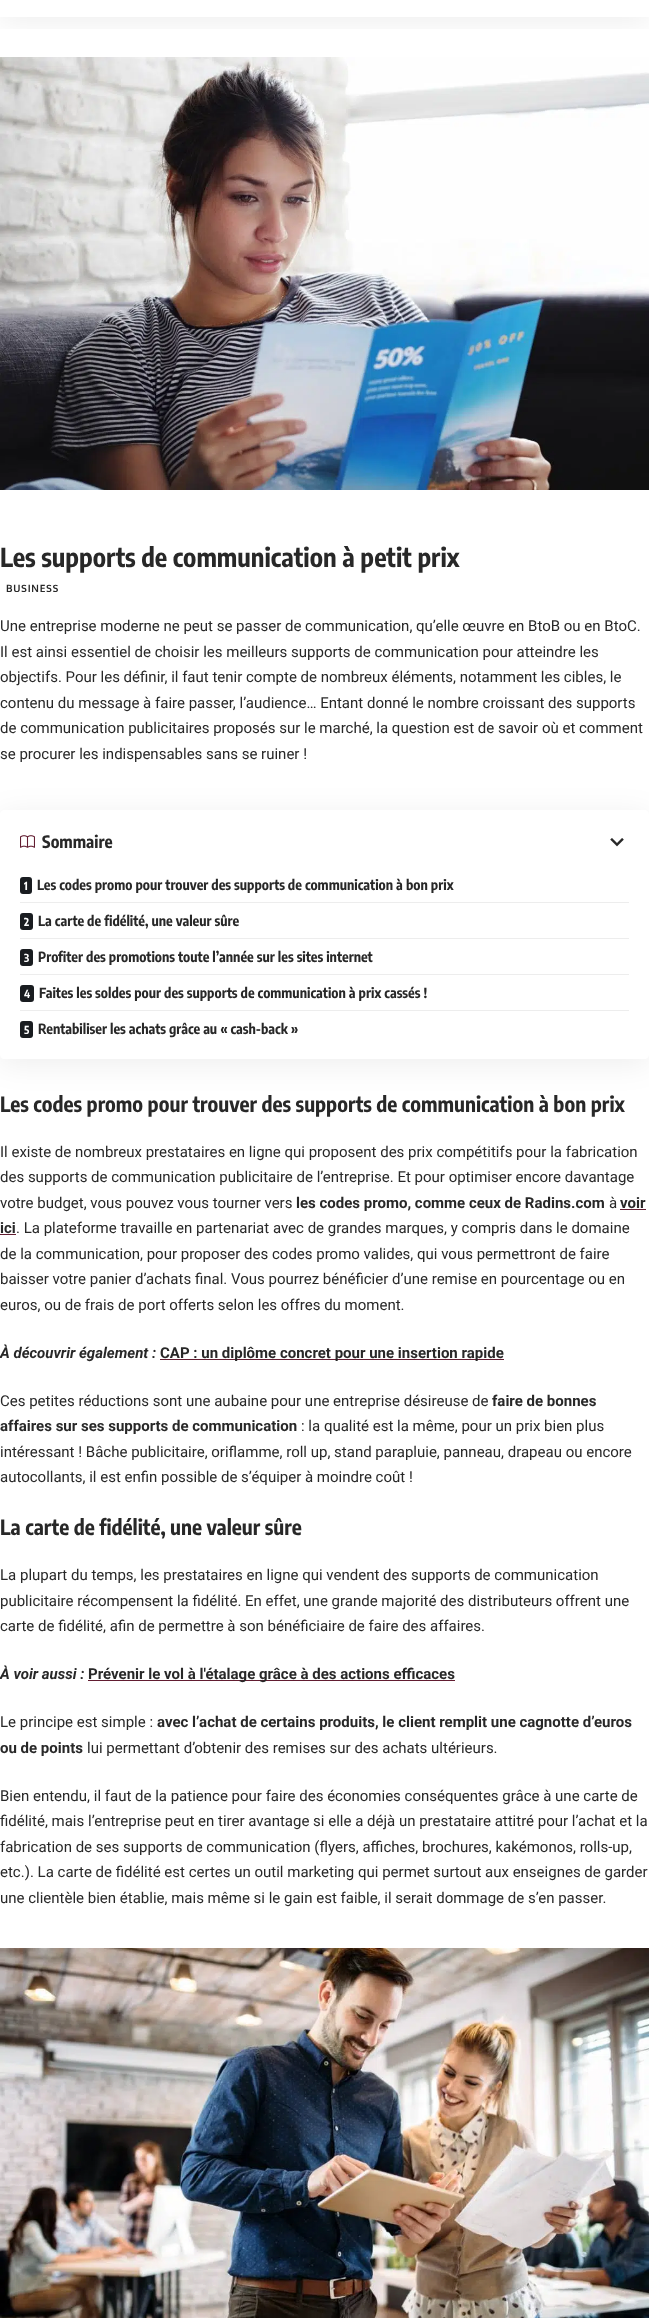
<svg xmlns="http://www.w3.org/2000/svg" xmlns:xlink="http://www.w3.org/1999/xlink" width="649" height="2318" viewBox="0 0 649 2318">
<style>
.cls-1{font:bold 26px Encode Sans Condensed;fill:#282828}
.cls-2{font:bold 10px Oxygen;letter-spacing:0.75px;fill:#282828}
.cls-3{font:15px Roboto;fill:#282828}
.cls-4{font:bold 17px Encode Sans Condensed;fill:#282828}
.cls-5{font:bold 11px Encode Sans Condensed;fill:#ffffff}
.cls-6{font:bold 14px Encode Sans Condensed;fill:#282828}
.cls-7{font:bold 21px Encode Sans Condensed;fill:#282828}
.cls-8{font:bold 15px Roboto;fill:#282828}
.cls-9{font:italic bold 15px Roboto;fill:#282828}
</style>
<defs>
<clipPath id="clip1"><rect x="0" y="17" width="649" height="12"/></clipPath>
<clipPath id="clip2"><path d="M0 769H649V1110H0ZM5 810H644C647 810 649 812 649 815V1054C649 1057 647 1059 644 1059H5C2 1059 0 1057 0 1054V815C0 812 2 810 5 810Z" clip-rule="evenodd"/></clipPath>
</defs>
<rect width="100%" height="100%" fill="#ffffff"/>
<image xlink:href="image0.png" x="0" y="57" width="649" height="433"/>
<g clip-path="url(#clip1)">
<rect fill="#000000" fill-opacity="0.07" filter="blur(15px)" x="0" y="-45" width="649" height="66"/>
</g>
<g clip-path="url(#clip2)">
<rect fill="#000000" fill-opacity="0.07" filter="blur(15px)" x="0" y="815" width="649" height="249" rx="5"/>
</g>
<image xlink:href="image1.png" x="20" y="835" width="15" height="13"/>
<image xlink:href="image2.png" x="610" y="838" width="14" height="9"/>
<rect fill="#191c20" x="20" y="877" width="12" height="17" rx="3"/>
<rect fill="#ededed" x="20" y="902" width="609" height="1"/>
<rect fill="#191c20" x="20" y="913" width="13" height="17" rx="3"/>
<rect fill="#ededed" x="20" y="938" width="609" height="1"/>
<rect fill="#191c20" x="20" y="949" width="13" height="17" rx="3"/>
<rect fill="#ededed" x="20" y="974" width="609" height="1"/>
<rect fill="#191c20" x="20" y="985" width="14" height="17" rx="3"/>
<rect fill="#ededed" x="20" y="1010" width="609" height="1"/>
<rect fill="#191c20" x="20" y="1021" width="13" height="17" rx="3"/>
<rect fill="#621d31" x="620" y="1209" width="26" height="1"/>
<rect fill="#621d31" x="0" y="1234" width="16" height="1"/>
<rect fill="#621d31" x="160" y="1359" width="344" height="1"/>
<rect fill="#621d31" x="88" y="1680" width="367" height="1"/>
<image xlink:href="image3.png" x="0" y="1948" width="649" height="370"/>
<text class="cls-1" x="0" y="567">Les supports de communication à petit prix</text>
<text class="cls-2" x="6" y="592">BUSINESS</text>
<text class="cls-3"><tspan x="0" y="631">Une entreprise moderne ne peut se passer de communication, qu’elle œuvre en BtoB ou en BtoC.</tspan><tspan x="0" y="657">Il est ainsi essentiel de choisir les meilleurs supports de communication pour atteindre les</tspan><tspan x="0" y="682">objectifs. Pour les définir, il faut tenir compte de nombreux éléments, notamment les cibles, le</tspan><tspan x="0" y="708">contenu du message à faire passer, l’audience… Entant donné le nombre croissant des supports</tspan><tspan x="0" y="733">de communication publicitaires proposés sur le marché, la question est de savoir où et comment</tspan><tspan x="0" y="759">se procurer les indispensables sans se ruiner !</tspan></text>
<text class="cls-4" x="42" y="848">Sommaire</text>
<text class="cls-5" x="24" y="890">1</text>
<text class="cls-6" x="37" y="890">Les codes promo pour trouver des supports de communication à bon prix</text>
<text class="cls-5" x="24" y="926">2</text>
<text class="cls-6" x="38" y="926">La carte de fidélité, une valeur sûre</text>
<text class="cls-5" x="24" y="962">3</text>
<text class="cls-6" x="38" y="962">Profiter des promotions toute l’année sur les sites internet</text>
<text class="cls-5" x="24" y="998">4</text>
<text class="cls-6" x="39" y="998">Faites les soldes pour des supports de communication à prix cassés !</text>
<text class="cls-5" x="24" y="1034">5</text>
<text class="cls-6" x="38" y="1034">Rentabiliser les achats grâce au « cash-back »</text>
<text class="cls-7" x="0" y="1112">Les codes promo pour trouver des supports de communication à bon prix</text>
<text class="cls-3"><tspan x="0" y="1157">Il existe de nombreux prestataires en ligne qui proposent des prix compétitifs pour la fabrication</tspan><tspan x="0" y="1182">des supports de communication publicitaire de l’entreprise. Et pour optimiser encore davantage</tspan><tspan x="0" y="1208">votre budget, vous pouvez vous tourner vers</tspan></text>
<text class="cls-8" x="296" y="1208">les codes promo, comme ceux de Radins.com</text>
<text class="cls-3" x="609" y="1208">à</text>
<text class="cls-8" x="620" y="1208">voir</text>
<text class="cls-8" x="0" y="1233">ici</text>
<text class="cls-3" x="16" y="1233">. La plateforme travaille en partenariat avec de grandes marques, y compris dans le domaine</text>
<text class="cls-3"><tspan x="0" y="1259">de la communication, pour proposer des codes promo valides, qui vous permettront de faire</tspan><tspan x="0" y="1284">baisser votre panier d’achats final. Vous pourrez bénéficier d’une remise en pourcentage ou en</tspan><tspan x="0" y="1310">euros, ou de frais de port offerts selon les offres du moment.</tspan></text>
<text class="cls-9" x="0" y="1358">À découvrir également :</text>
<text class="cls-8" x="160" y="1358">CAP : un diplôme concret pour une insertion rapide</text>
<text class="cls-3" x="0" y="1406">Ces petites réductions sont une aubaine pour une entreprise désireuse de</text>
<text class="cls-8" x="492" y="1406">faire de bonnes</text>
<text class="cls-8" x="0" y="1431">affaires sur ses supports de communication</text>
<text class="cls-3" x="301" y="1431">: la qualité est la même, pour un prix bien plus</text>
<text class="cls-3"><tspan x="0" y="1457">intéressant ! Bâche publicitaire, oriflamme, roll up, stand parapluie, panneau, drapeau ou encore</tspan><tspan x="0" y="1482">autocollants, il est enfin possible de s’équiper à moindre coût !</tspan></text>
<text class="cls-7" x="0" y="1535">La carte de fidélité, une valeur sûre</text>
<text class="cls-3"><tspan x="0" y="1580">La plupart du temps, les prestataires en ligne qui vendent des supports de communication</tspan><tspan x="0" y="1606">publicitaire récompensent la fidélité. En effet, une grande majorité des distributeurs offrent une</tspan><tspan x="0" y="1631">carte de fidélité, afin de permettre à son bénéficiaire de faire des affaires.</tspan></text>
<text class="cls-9" x="0" y="1679">À voir aussi :</text>
<text class="cls-8" x="88" y="1679">Prévenir le vol à l'étalage grâce à des actions efficaces</text>
<text class="cls-3" x="0" y="1727">Le principe est simple :</text>
<text class="cls-8" x="157" y="1727">avec l’achat de certains produits, le client remplit une cagnotte d’euros</text>
<text class="cls-8" x="0" y="1753">ou de points</text>
<text class="cls-3" x="87" y="1753">lui permettant d’obtenir des remises sur des achats ultérieurs.</text>
<text class="cls-3"><tspan x="0" y="1801">Bien entendu, il faut de la patience pour faire des économies conséquentes grâce à une carte de</tspan><tspan x="0" y="1826">fidélité, mais l’entreprise peut en tirer avantage si elle a déjà un prestataire attitré pour l’achat et la</tspan><tspan x="0" y="1852">fabrication de ses supports de communication (flyers, affiches, brochures, kakémonos, rolls-up,</tspan><tspan x="0" y="1877">etc.). La carte de fidélité est certes un outil marketing qui permet surtout aux enseignes de garder</tspan><tspan x="0" y="1903">une clientèle bien établie, mais même si le gain est faible, il serait dommage de s’en passer.</tspan></text>
</svg>
